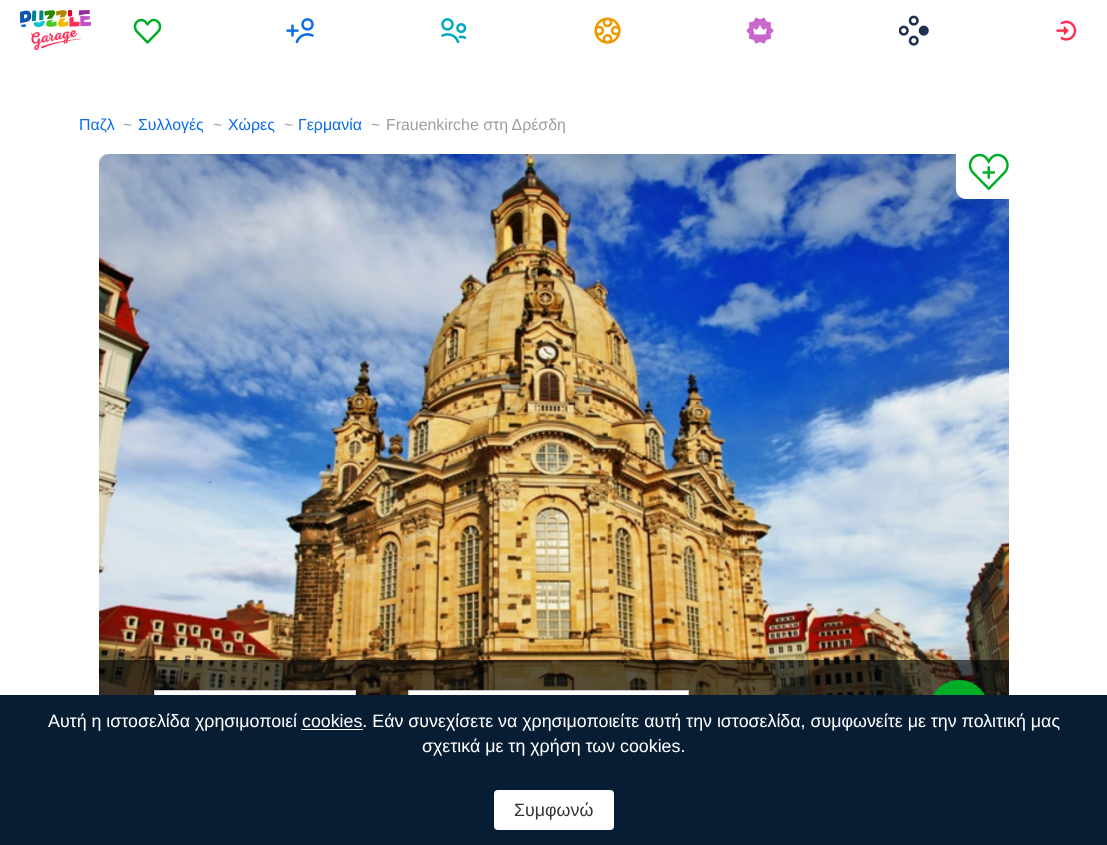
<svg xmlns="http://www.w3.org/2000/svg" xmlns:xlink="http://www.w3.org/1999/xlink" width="1107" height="845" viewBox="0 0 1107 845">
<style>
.cls-1{font:15.9px Liberation Sans;fill:#0d6ee3}
.cls-2{font:15.9px Liberation Sans;fill:#9e9e9e}
.cls-3{font:17.82px Liberation Sans;fill:#ffffff}
.cls-4{font:17.82px Liberation Sans;fill:#343434}
</style>
<rect width="100%" height="100%" fill="#ffffff"/>
<image xlink:href="image0.png" x="20" y="10" width="71" height="40"/>
<image xlink:href="image1.png" x="133" y="18" width="29" height="26"/>
<image xlink:href="image2.png" x="286" y="18" width="28" height="26"/>
<image xlink:href="image3.png" x="441" y="18" width="26" height="26"/>
<image xlink:href="image4.png" x="594" y="17" width="27" height="27"/>
<image xlink:href="image5.png" x="746" y="17" width="28" height="27"/>
<image xlink:href="image6.png" x="899" y="15" width="30" height="31"/>
<image xlink:href="image7.png" x="1056" y="20" width="21" height="21"/>
<image xlink:href="image9.png" x="99" y="154" width="910" height="541"/>
<path fill="#ffffff" d="M956 154H1009V199H966C960.5 199 956 194.5 956 189Z"/>
<image xlink:href="image8.png" x="968" y="153" width="41" height="38"/>
<rect fill="#010407" fill-opacity="0.64" x="99" y="660" width="910" height="35"/>
<rect fill="#ffffff" x="155" y="691" width="200" height="4"/>
<rect fill="none" stroke="#c6c6c6" x="154.5" y="690.5" width="201" height="39"/>
<rect fill="#ffffff" x="409" y="691" width="279" height="4"/>
<rect fill="none" stroke="#c6c6c6" x="408.5" y="690.5" width="280" height="39"/>
<circle fill="#00ad27" cx="959" cy="710" r="30"/>
<rect fill="#071d33" x="0" y="695" width="1107" height="150"/>
<rect fill="#ffffff" x="301" y="729" width="62" height="1"/>
<rect fill="#ffffff" x="494" y="790" width="120" height="40" rx="4"/>
<text class="cls-1" x="79" y="130">Παζλ</text>
<text class="cls-2" x="123" y="130">~</text>
<text class="cls-1" x="138" y="130">Συλλογές</text>
<text class="cls-2" x="213" y="130">~</text>
<text class="cls-1" x="228" y="130">Χώρες</text>
<text class="cls-2" x="284" y="130">~</text>
<text class="cls-1" x="298" y="130">Γερμανία</text>
<text class="cls-2" x="371" y="130">~</text>
<text class="cls-2" x="386" y="130">Frauenkirche στη Δρέσδη</text>
<text class="cls-3" x="48" y="727">Αυτή η ιστοσελίδα χρησιμοποιεί cookies. Εάν συνεχίσετε να χρησιμοποιείτε αυτή την ιστοσελίδα, συμφωνείτε με την πολιτική μας</text>
<text class="cls-3" x="422" y="752">σχετικά με τη χρήση των cookies.</text>
<text class="cls-4" x="514" y="816">Συμφωνώ</text>
</svg>
